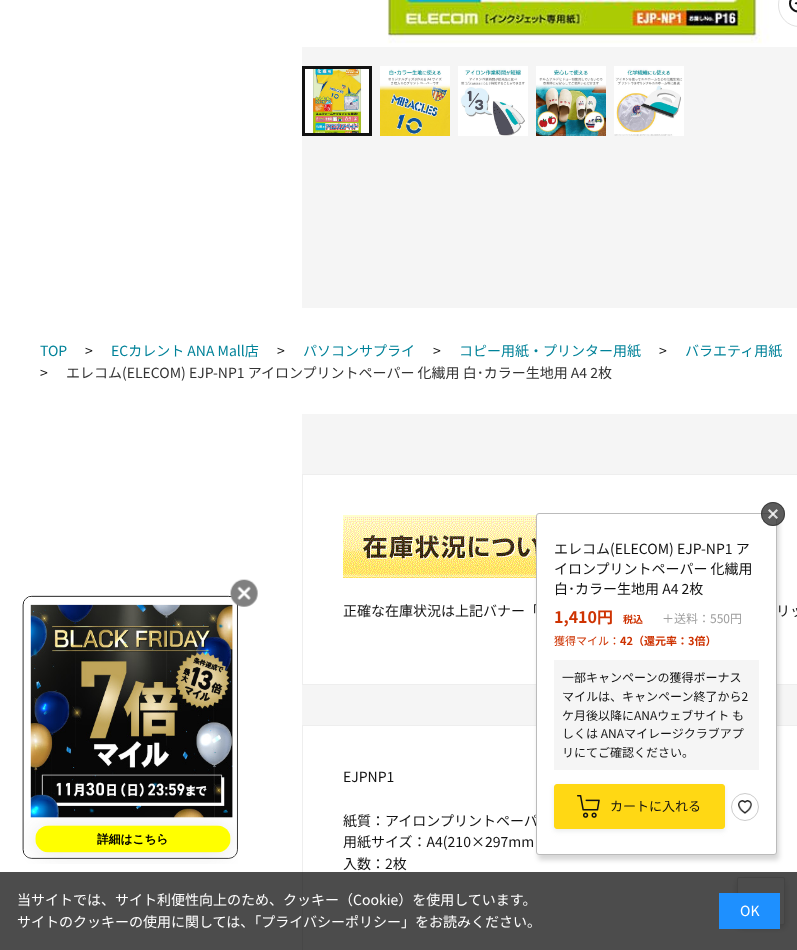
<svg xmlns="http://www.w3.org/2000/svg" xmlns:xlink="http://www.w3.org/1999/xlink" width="797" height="950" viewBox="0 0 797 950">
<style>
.cls-1{font:14px Noto Sans JP;fill:#008299}
.cls-2{font:14px Noto Sans JP;fill:#121212}
.cls-3{font:14px Noto Sans JP;fill:#333333}
.cls-4{font:bold 16px Noto Sans JP;fill:#ce3302}
.cls-5{font:bold 10px Noto Sans JP;fill:#ce3302}
.cls-6{font:12px Noto Sans JP;fill:#9e9e9e}
.cls-7{font:11px Noto Sans JP;fill:#ce3302}
.cls-8{font:bold 11px Noto Sans JP;fill:#ce3302}
.cls-9{font:12px Noto Sans JP;fill:#121212}
.cls-10{font:13px Noto Sans JP;fill:#121212}
.cls-11{font:14px Noto Sans JP;fill:#ffffff}
</style>
<rect width="100%" height="100%" fill="#ffffff"/>
<rect fill="#f5f5f5" x="302" y="47" width="495" height="261"/>
<image xlink:href="image0.png" x="302" y="0" width="495" height="47"/>
<image xlink:href="image1.png" x="789" y="0" width="8" height="13"/>
<rect fill="none" stroke="#e0e0e0" x="778.5" y="-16.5" width="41" height="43" rx="21.5"/>
<image xlink:href="image2.png" x="305" y="69" width="64" height="64"/>
<rect fill="none" stroke="#121212" stroke-width="3" x="303.5" y="67.5" width="67" height="67"/>
<image xlink:href="image3.png" x="380" y="66" width="70" height="70"/>
<image xlink:href="image4.png" x="458" y="66" width="70" height="70"/>
<image xlink:href="image5.png" x="536" y="66" width="70" height="70"/>
<image xlink:href="image6.png" x="614" y="66" width="70" height="70"/>
<rect fill="#f5f5f5" x="302" y="414" width="495" height="311"/>
<rect fill="none" stroke="#eeeeee" x="302.5" y="474.5" width="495" height="210"/>
<rect fill="#ffffff" x="303" y="475" width="494" height="209"/>
<image xlink:href="image7.png" x="343" y="515" width="194" height="63"/>
<rect fill="none" stroke="#eeeeee" x="302.5" y="725.5" width="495" height="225"/>
<rect fill="#000000" fill-opacity="0.16" filter="blur(2.5px)" x="538" y="518" width="241" height="342" rx="3"/>
<rect fill="#000000" fill-opacity="0.16" filter="blur(3px)" x="737" y="880" width="48" height="48" rx="2"/>
<rect fill="#ffffff" stroke="#e0e0e0" x="737.5" y="877.5" width="47" height="47" rx="1.5"/>
<image xlink:href="image10.png" x="22" y="595" width="216" height="269"/>
<image xlink:href="image11.png" x="230" y="579" width="28" height="28"/>
<rect fill="#000000" fill-opacity="0.7" x="0" y="872" width="797" height="78"/>
<rect fill="#1e90ff" x="719" y="893" width="61" height="36"/>
<text class="cls-1" x="40" y="356">TOP</text>
<text class="cls-2" x="85" y="356">&gt;</text>
<text class="cls-1" x="111" y="356">ECカレント ANA Mall店</text>
<text class="cls-2" x="277" y="356">&gt;</text>
<text class="cls-1" x="303" y="356">パソコンサプライ</text>
<text class="cls-2" x="433" y="356">&gt;</text>
<text class="cls-1" x="459" y="356">コピー用紙・プリンター用紙</text>
<text class="cls-2" x="659" y="356">&gt;</text>
<text class="cls-1" x="685" y="356">バラエティ用紙</text>
<text class="cls-2" x="40" y="378">&gt;</text>
<text class="cls-3" x="66" y="378">エレコム(ELECOM) EJP-NP1 アイロンプリントペーパー 化繊用 白･カラー生地用 A4 2枚</text>
<text class="cls-2" x="343" y="616">正確な在庫状況は上記バナー「</text>
<text class="cls-2" x="776" y="616">リッ</text>
<text class="cls-2" x="343" y="782">EJPNP1</text>
<text class="cls-2"><tspan x="343" y="826">紙質：アイロンプリントペーパ</tspan><tspan x="343" y="847">用紙サイズ：A4(210×297mm</tspan><tspan x="343" y="869">入数：2枚</tspan></text>
<rect fill="#ffffff" stroke="#bbbbbb" x="536.5" y="513.5" width="240" height="341" rx="2.5"/>
<circle fill="#333333" fill-opacity="0.8" cx="773" cy="514" r="12"/>
<circle fill="none" stroke="#333333" stroke-opacity="0.8" cx="773" cy="514" r="11.5"/>
<path fill="#ffffff" fill-opacity="0.8" d="M769.5 509L778 517.5L776.5 519L768 510.5Z"/>
<path fill="#ffffff" fill-opacity="0.8" d="M768 517.5L776.5 509L778 510.5L769.5 519Z"/>
<text class="cls-2"><tspan x="554" y="554">エレコム(ELECOM) EJP-NP1 ア</tspan><tspan x="554" y="574">イロンプリントペーパー 化繊用</tspan><tspan x="554" y="594">白･カラー生地用 A4 2枚</tspan></text>
<text class="cls-4" x="554" y="623">1,410円</text>
<text class="cls-5" x="623" y="623">税込</text>
<text class="cls-6" x="662" y="623">＋送料：550円</text>
<text class="cls-7" x="554" y="645">獲得マイル：</text>
<text class="cls-8" x="620" y="645">42（還元率：3倍）</text>
<rect fill="#f5f5f5" x="554" y="660" width="205" height="110"/>
<text class="cls-9"><tspan x="562" y="682">一部キャンペーンの獲得ボーナス</tspan><tspan x="562" y="701">マイルは、キャンペーン終了から2</tspan><tspan x="562" y="720">ケ月後以降にANAウェブサイト も</tspan><tspan x="562" y="738">しくは ANAマイレージクラブアプ</tspan><tspan x="562" y="757">リにてご確認ください。</tspan></text>
<rect fill="#d5d9d9" fill-opacity="0.5" filter="blur(2.5px)" x="554" y="786" width="171" height="45" rx="3"/>
<rect fill="#ffd814" stroke="#ffd814" x="554.5" y="784.5" width="170" height="44" rx="2.5"/>
<image xlink:href="image8.png" x="577" y="795" width="23" height="23"/>
<text class="cls-10" x="610" y="811">カートに入れる</text>
<circle fill="none" stroke="#cccccc" cx="745" cy="807" r="13.5"/>
<image xlink:href="image9.png" x="738" y="800" width="14" height="14"/>
<text class="cls-11"><tspan x="17" y="905">当サイトでは、サイト利便性向上のため、クッキー（Cookie）を使用しています。</tspan><tspan x="17" y="927">サイトのクッキーの使用に関しては、「プライバシーポリシー」</tspan></text>
<text class="cls-11" x="415" y="927">をお読みください。</text>
<text class="cls-11" x="740" y="916">OK</text>
</svg>
